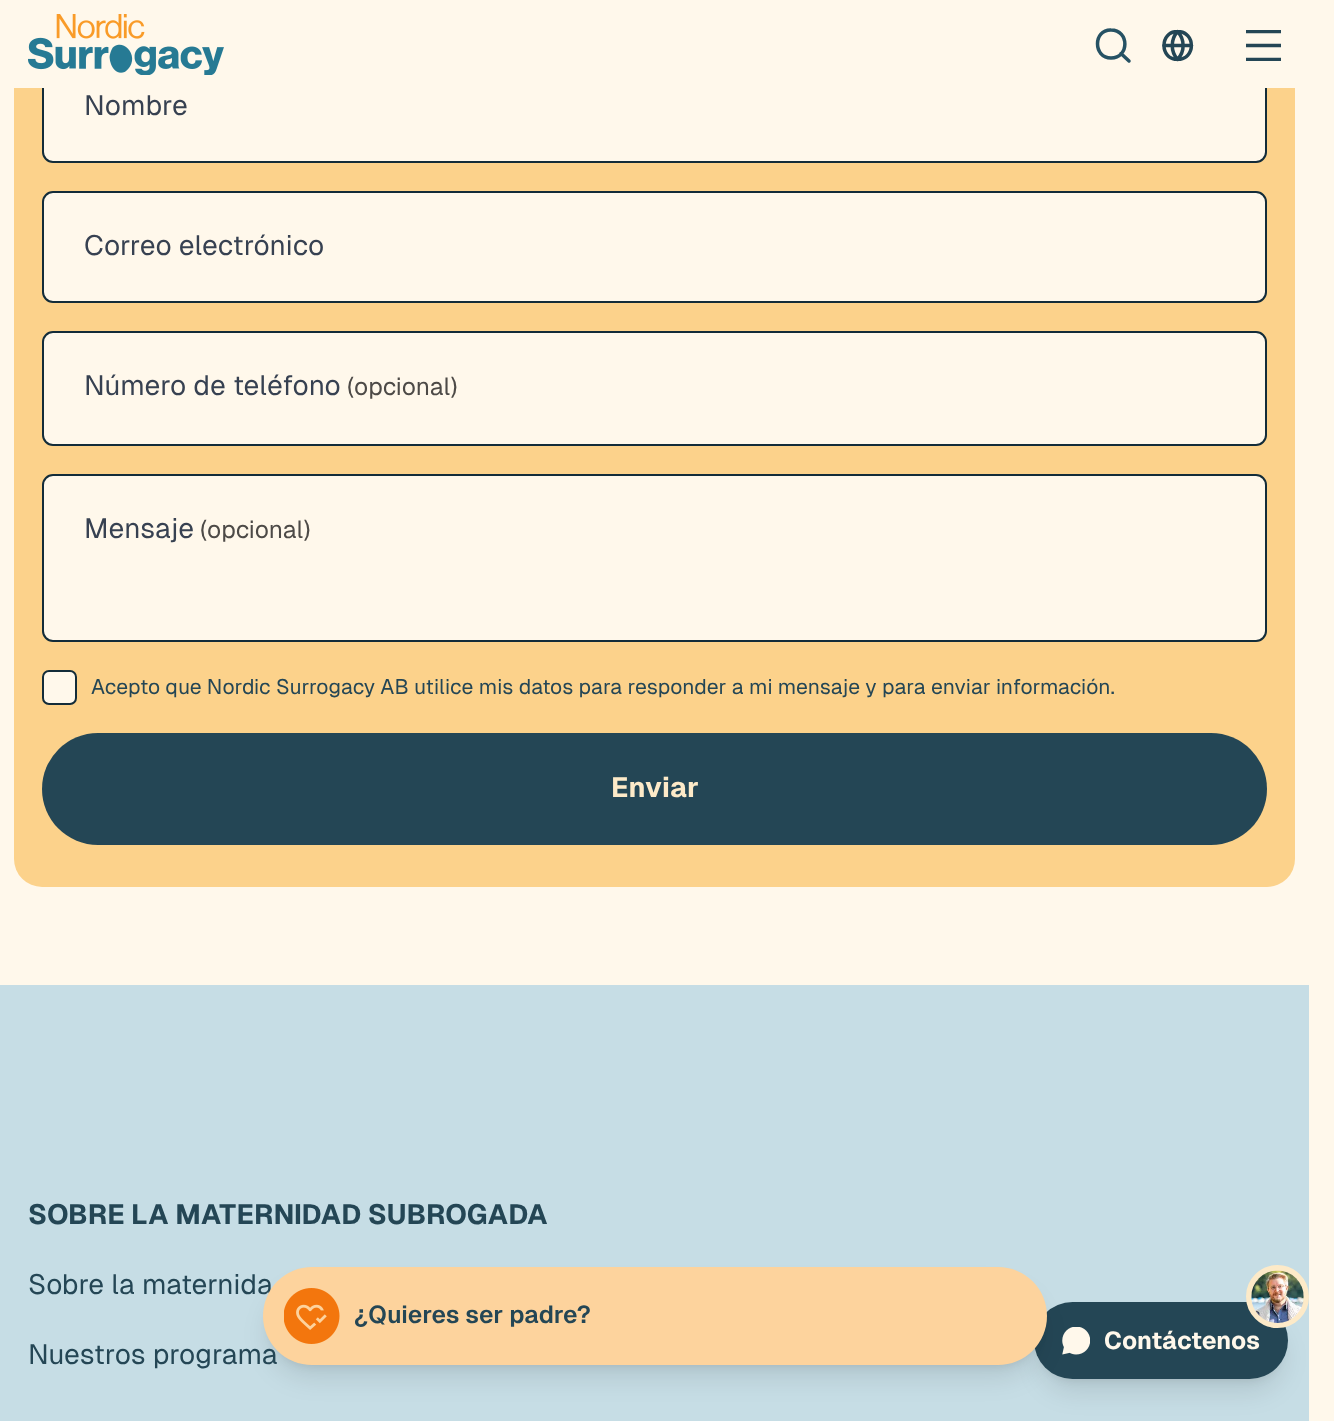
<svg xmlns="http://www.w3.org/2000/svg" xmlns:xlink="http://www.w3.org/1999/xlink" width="1334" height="1421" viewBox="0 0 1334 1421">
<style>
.cls-1{font:28px Geist;fill:#374151}
.cls-2{font:24.5px Geist;fill:#4d4a47}
.cls-3{font:21px Geist;fill:#244655}
.cls-4{font:bold 28px Geist;fill:#fdeac8}
.cls-5{font:bold 28px Geist;fill:#244655}
.cls-6{font:28px Geist;fill:#244655}
.cls-7{font:600 24.5px Geist;fill:#244655}
.cls-8{font:bold 24.5px Geist;fill:#fff8eb}
</style>
<defs>
<clipPath id="clip1"><rect x="1162" y="30" width="32" height="31"/></clipPath>
<clipPath id="clip2"><rect x="1246" y="30" width="35" height="31"/></clipPath>
</defs>
<rect width="100%" height="100%" fill="#fff8eb"/>
<rect fill="#fcd28b" x="14" y="-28" width="1281" height="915" rx="28"/>
<rect fill="#fff8eb" stroke="#132c39" stroke-width="2" x="43" y="52" width="1223" height="110" rx="10"/>
<rect fill="#fff8eb" x="14" y="0" width="1281" height="88"/>
<image xlink:href="image0.png" x="28" y="14" width="196" height="61"/>
<path fill="none" stroke="#265264" stroke-width="3.5" stroke-linecap="round" stroke-linejoin="round" d="M1111 58C1129.5 58 1129.5 30 1111 30C1093 29.5 1093 58 1111 58ZM1129 61L1121 53.5"/>
<g clip-path="url(#clip1)">
<path fill="none" stroke="#244655" stroke-width="3.5" stroke-linecap="round" stroke-linejoin="round" d="M1177.5 59.5C1196 59.5 1196 31.5 1177.5 31.5C1159.5 31.5 1159.5 59.5 1177.5 59.5Z"/>
</g>
<path fill="none" stroke="#244655" stroke-width="3.5" stroke-linecap="round" stroke-linejoin="round" d="M1164 45.5H1191.5M1177.5 31.5C1185 39.5 1185 51.5 1177.5 59.5C1170.5 51.5 1170.5 39.5 1177.5 31.5Z"/>
<g clip-path="url(#clip2)">
<path fill="none" stroke="#244655" stroke-width="3.5" d="M1246 31.5H1281M1246 45.5H1281M1246 59.5H1281"/>
</g>
<rect fill="#fff8eb" stroke="#132c39" stroke-width="2" x="43" y="192" width="1223" height="110" rx="10"/>
<rect fill="#fff8eb" stroke="#132c39" stroke-width="2" x="43" y="332" width="1223" height="113" rx="10"/>
<rect fill="#fff8eb" stroke="#132c39" stroke-width="2" x="43" y="475" width="1223" height="166" rx="10"/>
<rect fill="#fff8eb" stroke="#132c39" stroke-width="2" x="43" y="671" width="33" height="33" rx="6"/>
<rect fill="#244655" x="42" y="733" width="1225" height="112" rx="56"/>
<rect fill="#c6dde5" x="0" y="985" width="1309" height="436"/>
<rect fill="#000000" fill-opacity="0.1" filter="blur(5px)" x="1041" y="1316" width="240" height="63" rx="31.5"/>
<rect fill="#000000" fill-opacity="0.1" filter="blur(13px)" x="1040" y="1325" width="243" height="66" rx="33"/>
<rect fill="#244655" x="1034" y="1302" width="254" height="77" rx="38.5"/>
<rect fill="#000000" fill-opacity="0.1" filter="blur(5px)" x="270" y="1281" width="770" height="84" rx="42"/>
<image xlink:href="image3.png" x="1062" y="1327" width="28" height="28"/>
<rect fill="#000000" fill-opacity="0.1" filter="blur(13px)" x="268" y="1290" width="773" height="87" rx="43.5"/>
<circle fill="#fdeac8" stroke="#fdeac8" stroke-width="5" cx="1277.5" cy="1296.5" r="29"/>
<image xlink:href="image2.png" x="1251" y="1270" width="53" height="53"/>
<text class="cls-1" x="84" y="115">Nombre</text>
<text class="cls-1" x="84" y="255">Correo electrónico</text>
<text class="cls-1" x="84" y="395">Número de teléfono</text>
<text class="cls-2" x="347" y="395">(opcional)</text>
<text class="cls-1" x="84" y="538">Mensaje</text>
<text class="cls-2" x="200" y="538">(opcional)</text>
<text class="cls-3" x="91" y="694">Acepto que Nordic Surrogacy AB utilice mis datos para responder a mi mensaje y para enviar información.</text>
<text class="cls-4" x="611" y="797">Enviar</text>
<text class="cls-5" x="28" y="1224">SOBRE LA MATERNIDAD SUBROGADA</text>
<text class="cls-6" x="28" y="1294">Sobre la maternida</text>
<text class="cls-6" x="28" y="1364">Nuestros programa</text>
<rect fill="#fdd39d" x="263" y="1267" width="784" height="98" rx="49"/>
<image xlink:href="image1.png" x="284" y="1288" width="56" height="56"/>
<text class="cls-7" x="354" y="1323">¿Quieres ser padre?</text>
<text class="cls-8" x="1104" y="1349">Contáctenos</text>
</svg>
